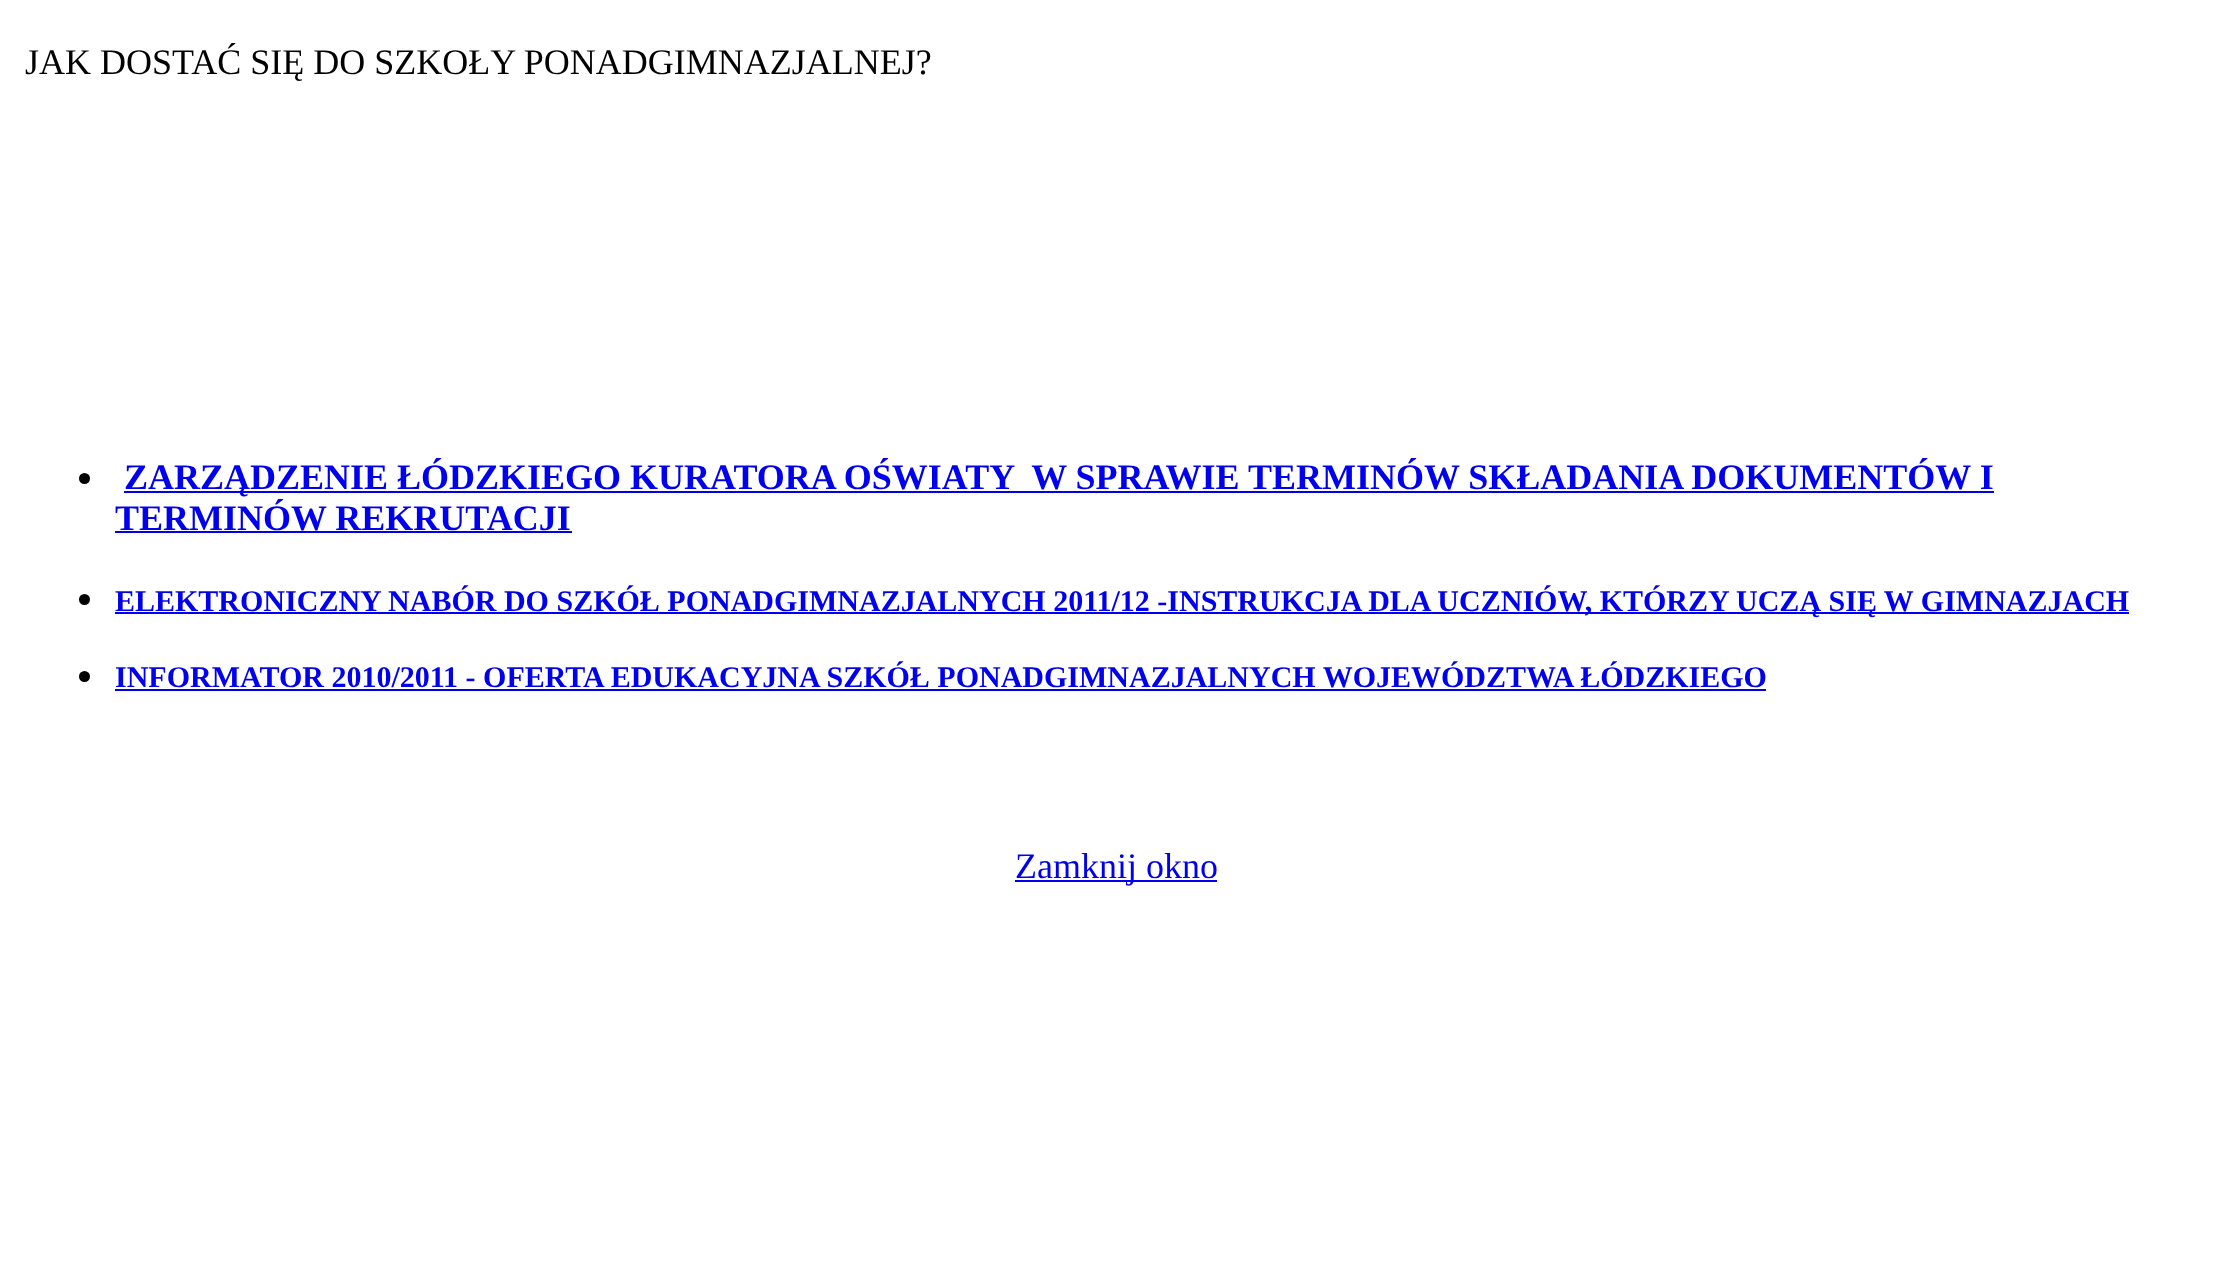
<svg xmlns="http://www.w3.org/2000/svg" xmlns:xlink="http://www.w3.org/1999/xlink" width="2232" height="1267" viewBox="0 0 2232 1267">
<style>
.cls-1{font:36px Liberation Serif;fill:#000000}
.cls-2{font:bold 36px Liberation Serif;fill:#0000ee}
.cls-3{font:bold 30px Liberation Serif;fill:#0000ee}
.cls-4{font:36px Liberation Serif;fill:#0000ee}
</style>
<rect width="100%" height="100%" fill="#ffffff"/>
<circle fill="#000000" cx="84.5" cy="478.5" r="5.5"/>
<rect fill="#0000ee" x="124" y="491" width="1870" height="2"/>
<rect fill="#0000ee" x="115" y="531" width="457" height="2"/>
<circle fill="#000000" cx="84.5" cy="599.5" r="5.5"/>
<rect fill="#0000ee" x="115" y="612" width="2014" height="2"/>
<circle fill="#000000" cx="84.5" cy="676.5" r="5.5"/>
<rect fill="#0000ee" x="115" y="689" width="1651" height="2"/>
<rect fill="#0000ee" x="1015" y="880" width="202" height="2"/>
<text class="cls-1" x="25" y="74">JAK DOSTAĆ SIĘ DO SZKOŁY PONADGIMNAZJALNEJ?</text>
<text class="cls-2" xml:space="preserve" x="124" y="489">ZARZĄDZENIE ŁÓDZKIEGO KURATORA OŚWIATY  W SPRAWIE TERMINÓW SKŁADANIA DOKUMENTÓW I</text>
<text class="cls-2" x="115" y="530">TERMINÓW REKRUTACJI</text>
<text class="cls-3" x="115" y="611">ELEKTRONICZNY NABÓR DO SZKÓŁ PONADGIMNAZJALNYCH 2011/12 -INSTRUKCJA DLA UCZNIÓW, KTÓRZY UCZĄ SIĘ W GIMNAZJACH</text>
<text class="cls-3" x="115" y="687">INFORMATOR 2010/2011 - OFERTA EDUKACYJNA SZKÓŁ PONADGIMNAZJALNYCH WOJEWÓDZTWA ŁÓDZKIEGO</text>
<text class="cls-4" x="1015" y="878">Zamknij okno</text>
</svg>
